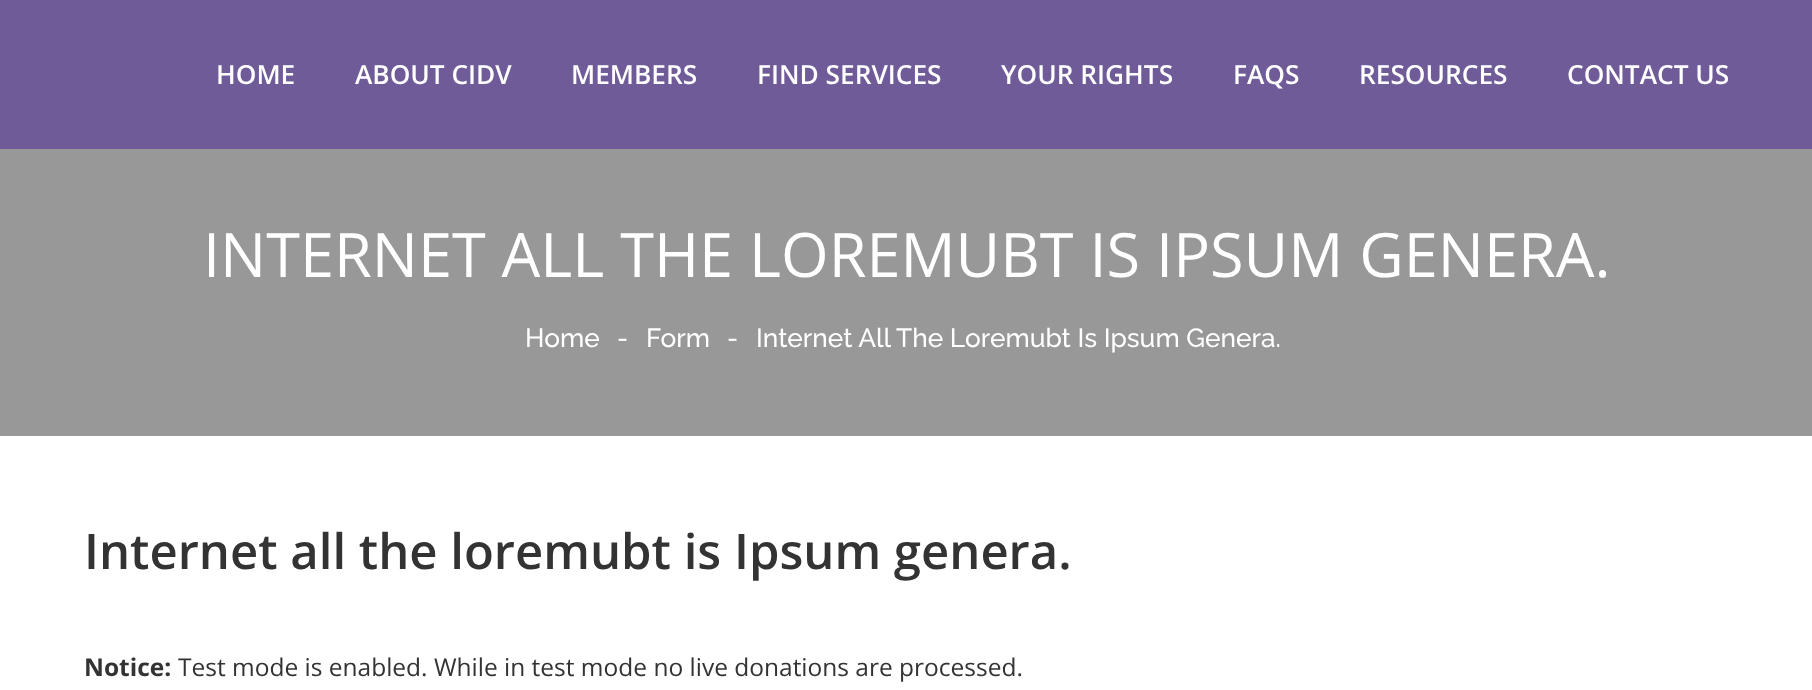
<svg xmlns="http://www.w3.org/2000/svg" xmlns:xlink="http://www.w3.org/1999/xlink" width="1812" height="690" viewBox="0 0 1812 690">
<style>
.cls-1{font:600 26.25px Open Sans;fill:#ffffff}
.cls-2{font:61.25px Open Sans;fill:#ffffff}
.cls-3{font:500 26.25px Raleway;fill:#ffffff}
.cls-4{font:600 49px Open Sans;fill:#333333}
.cls-5{font:bold 24.5px Open Sans;fill:#333333}
.cls-6{font:24.5px Open Sans;fill:#333333}
</style>
<rect width="100%" height="100%" fill="#ffffff"/>
<rect fill="#6e5b98" x="0" y="0" width="1812" height="149"/>
<rect fill="#989898" x="0" y="149" width="1812" height="287"/>
<text class="cls-1" x="216" y="84">HOME</text>
<text class="cls-1" x="355" y="84">ABOUT CIDV</text>
<text class="cls-1" x="571" y="84">MEMBERS</text>
<text class="cls-1" x="757" y="84">FIND SERVICES</text>
<text class="cls-1" x="1001" y="84">YOUR RIGHTS</text>
<text class="cls-1" x="1233" y="84">FAQS</text>
<text class="cls-1" x="1359" y="84">RESOURCES</text>
<text class="cls-1" x="1567" y="84">CONTACT US</text>
<text class="cls-2" x="203" y="277">INTERNET ALL THE LOREMUBT IS IPSUM GENERA.</text>
<text class="cls-3" x="525" y="347">Home</text>
<text class="cls-3" x="617" y="347">-</text>
<text class="cls-3" x="646" y="347">Form</text>
<text class="cls-3" x="727" y="347">-</text>
<text class="cls-3" x="756" y="347">Internet All The Loremubt Is Ipsum Genera.</text>
<text class="cls-4" x="84" y="569">Internet all the loremubt is Ipsum genera.</text>
<text class="cls-5" x="84" y="676">Notice:</text>
<text class="cls-6" x="178" y="676">Test mode is enabled. While in test mode no live donations are processed.</text>
</svg>
